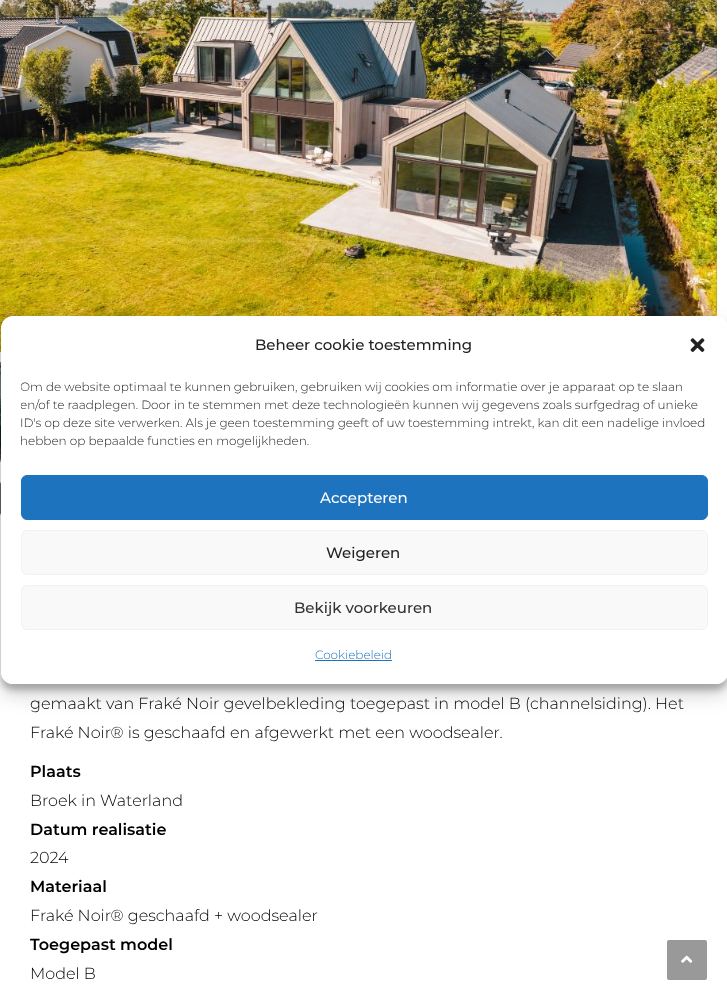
<svg xmlns="http://www.w3.org/2000/svg" xmlns:xlink="http://www.w3.org/1999/xlink" width="727" height="1000" viewBox="0 0 727 1000">
<style>
.cls-1{font:500 15px Montserrat;fill:#222222}
.cls-2{font:300 12px Montserrat;fill:#222222}
.cls-3{font:500 15px Montserrat;fill:#ffffff}
.cls-4{font:500 15px Montserrat;fill:#333333}
.cls-5{font:300 12px Montserrat;fill:#1e73be}
.cls-6{font:300 16px Montserrat;fill:#000000}
.cls-7{font:600 16px Montserrat;fill:#000000}
</style>
<defs>
<clipPath id="clip1"><path d="M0 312H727V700H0ZM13 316H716C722.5 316 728 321.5 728 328V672C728 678.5 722.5 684 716 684H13C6.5 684 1 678.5 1 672V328C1 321.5 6.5 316 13 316Z" clip-rule="evenodd"/></clipPath>
<clipPath id="clip2"><path d="M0 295H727V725H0ZM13 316H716C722.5 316 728 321.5 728 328V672C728 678.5 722.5 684 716 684H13C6.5 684 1 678.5 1 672V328C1 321.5 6.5 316 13 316Z" clip-rule="evenodd"/></clipPath>
<clipPath id="clip3"><rect x="21" y="378" width="687" height="77"/></clipPath>
</defs>
<rect width="100%" height="100%" fill="#ffffff"/>
<image xlink:href="image2.png" x="716" y="0" width="1" height="317"/>
<image xlink:href="image3.png" x="716" y="0" width="1" height="317"/>
<image xlink:href="image4.png" x="716" y="0" width="1" height="317"/>
<image xlink:href="image5.png" x="716" y="0" width="1" height="317"/>
<image xlink:href="image6.png" x="716" y="0" width="1" height="317"/>
<image xlink:href="image1.png" x="0" y="0" width="717" height="352"/>
<image xlink:href="image7.png" x="0" y="362" width="1" height="100"/>
<rect fill="#6f6761" x="0" y="482" width="269" height="33" rx="2"/>
<g clip-path="url(#clip1)">
<rect fill="#000000" fill-opacity="0.23" filter="blur(3px)" x="1" y="322" width="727" height="368" rx="12"/>
</g>
<g clip-path="url(#clip2)">
<rect fill="#000000" fill-opacity="0.19" filter="blur(10px)" x="1" y="326" width="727" height="368" rx="12"/>
</g>
<rect fill="#ffffff" x="1" y="316" width="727" height="368" rx="12"/>
<image xlink:href="image0.png" x="690" y="338" width="15" height="14"/>
<rect fill="#1e73be" stroke="#1e73be" x="21.5" y="475.5" width="686" height="44" rx="5.5"/>
<rect fill="#f9f9f9" stroke="#f2f2f2" x="21.5" y="530.5" width="686" height="44" rx="5.5"/>
<rect fill="#f9f9f9" stroke="#f2f2f2" x="21.5" y="585.5" width="686" height="44" rx="5.5"/>
<rect fill="#1e73be" x="315" y="660" width="77" height="1"/>
<rect fill="#999999" x="667" y="940" width="40" height="40" rx="2"/>
<image xlink:href="image8.png" x="681" y="955" width="12" height="8"/>
<text class="cls-1" x="255" y="350">Beheer cookie toestemming</text>
<g clip-path="url(#clip3)">
<text class="cls-2"><tspan x="20" y="391">Om de website optimaal te kunnen gebruiken, gebruiken wij cookies om informatie over je apparaat op te slaan</tspan><tspan x="20" y="409">en/of te raadplegen. Door in te stemmen met deze technologieën kunnen wij gegevens zoals surfgedrag of unieke</tspan></text>
</g>
<text class="cls-2"><tspan x="20" y="427">ID's op deze site verwerken. Als je geen toestemming geeft of uw toestemming intrekt, kan dit een nadelige invloed</tspan><tspan x="20" y="445">hebben op bepaalde functies en mogelijkheden.</tspan></text>
<text class="cls-3" x="320" y="503">Accepteren</text>
<text class="cls-1" x="326" y="558">Weigeren</text>
<text class="cls-4" x="294" y="613">Bekijk voorkeuren</text>
<text class="cls-5" x="315" y="659">Cookiebeleid</text>
<text class="cls-6"><tspan x="30" y="709">gemaakt van Fraké Noir gevelbekleding toegepast in model B (channelsiding). Het</tspan><tspan x="30" y="738">Fraké Noir® is geschaafd en afgewerkt met een woodsealer.</tspan></text>
<text class="cls-7" x="30" y="777">Plaats</text>
<text class="cls-6" x="30" y="806">Broek in Waterland</text>
<text class="cls-7" x="30" y="835">Datum realisatie</text>
<text class="cls-6" x="30" y="863">2024</text>
<text class="cls-7" x="30" y="892">Materiaal</text>
<text class="cls-6" x="30" y="921">Fraké Noir® geschaafd + woodsealer</text>
<text class="cls-7" x="30" y="950">Toegepast model</text>
<text class="cls-6" x="30" y="979">Model B</text>
</svg>
